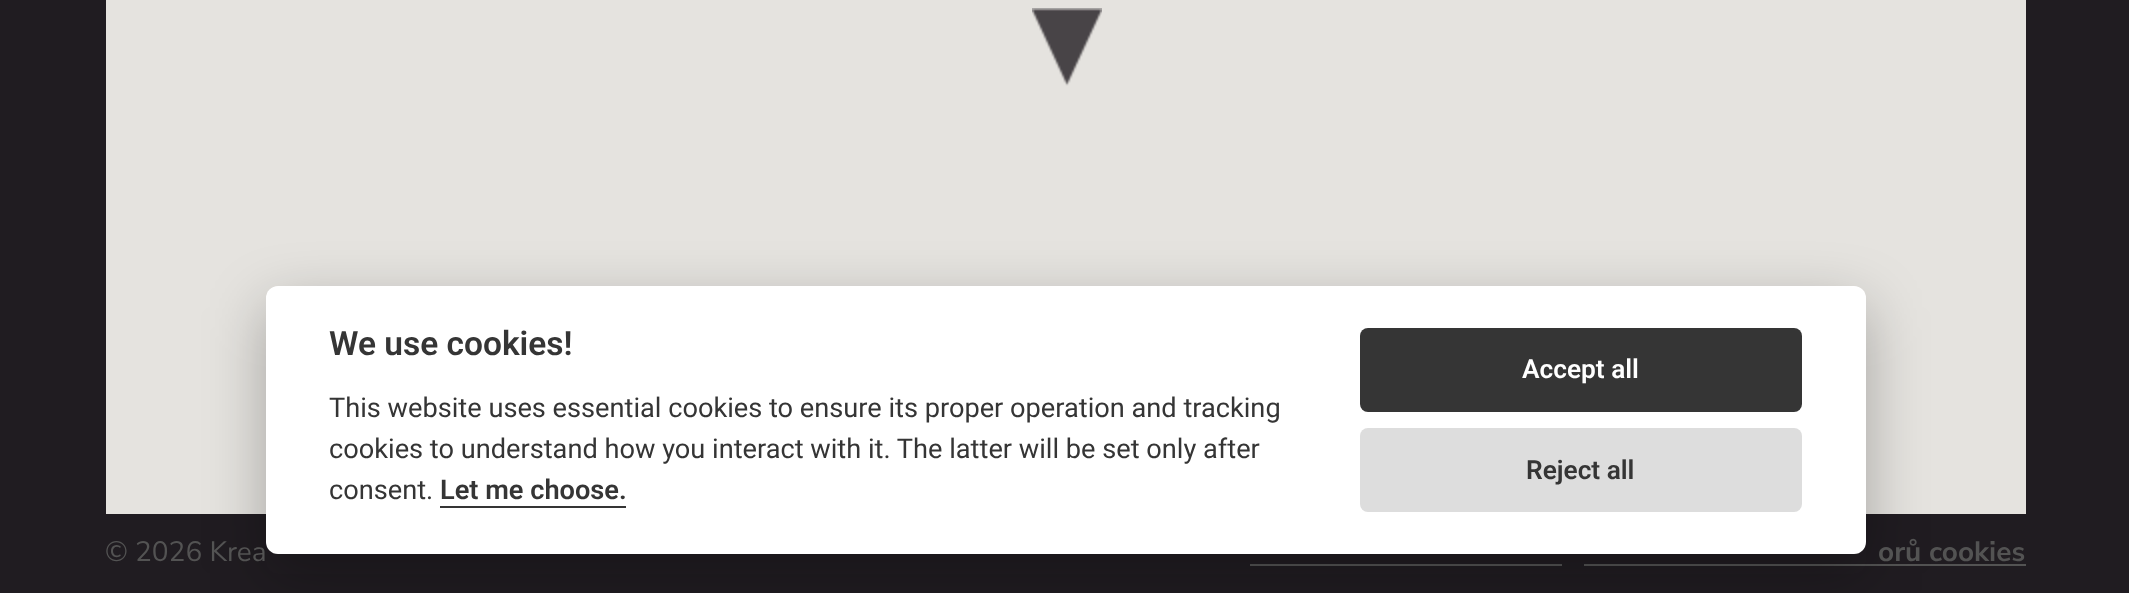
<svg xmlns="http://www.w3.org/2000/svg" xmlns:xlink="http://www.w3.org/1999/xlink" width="2129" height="593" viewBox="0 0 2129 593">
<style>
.cls-1{font:600 33.5px Roboto;fill:#353535}
.cls-2{font:27.2px Roboto;fill:#353535}
.cls-3{font:600 27.2px Roboto;fill:#353535}
.cls-4{font:600 26.25px Roboto;fill:#ffffff}
.cls-5{font:600 26.25px Roboto;fill:#353535}
.cls-6{font:28px Nunito Sans;fill:#535353}
.cls-7{font:bold 28px Nunito Sans;fill:#535353}
</style>
<rect width="100%" height="100%" fill="#201c21"/>
<rect fill="#e5e3df" x="106" y="0" width="1920" height="514"/>
<rect fill="#535353" x="1584" y="564" width="442" height="2"/>
<rect fill="#535353" x="1250" y="564" width="312" height="2"/>
<rect fill="#020203" fill-opacity="0.28" filter="blur(30px)" x="266" y="306" width="1600" height="268" rx="12"/>
<rect fill="#ffffff" x="266" y="286" width="1600" height="268" rx="12"/>
<rect fill="#353535" x="440" y="506" width="186" height="2"/>
<rect fill="#353535" x="1360" y="328" width="442" height="84" rx="8"/>
<rect fill="#dddddd" x="1360" y="428" width="442" height="84" rx="8"/>
<image xlink:href="image0.png" x="1032" y="8" width="70" height="78"/>
<text class="cls-1" x="329" y="355">We use cookies!</text>
<text class="cls-2"><tspan x="329" y="417">This website uses essential cookies to ensure its proper operation and tracking</tspan><tspan x="329" y="458">cookies to understand how you interact with it. The latter will be set only after</tspan><tspan x="329" y="499">consent.</tspan></text>
<text class="cls-3" x="440" y="499">Let me choose.</text>
<text class="cls-4" x="1522" y="378">Accept all</text>
<text class="cls-5" x="1526" y="479">Reject all</text>
<text class="cls-6" x="105" y="561">© 2026 Krea</text>
<text class="cls-7" x="1878" y="561">orů cookies</text>
</svg>
